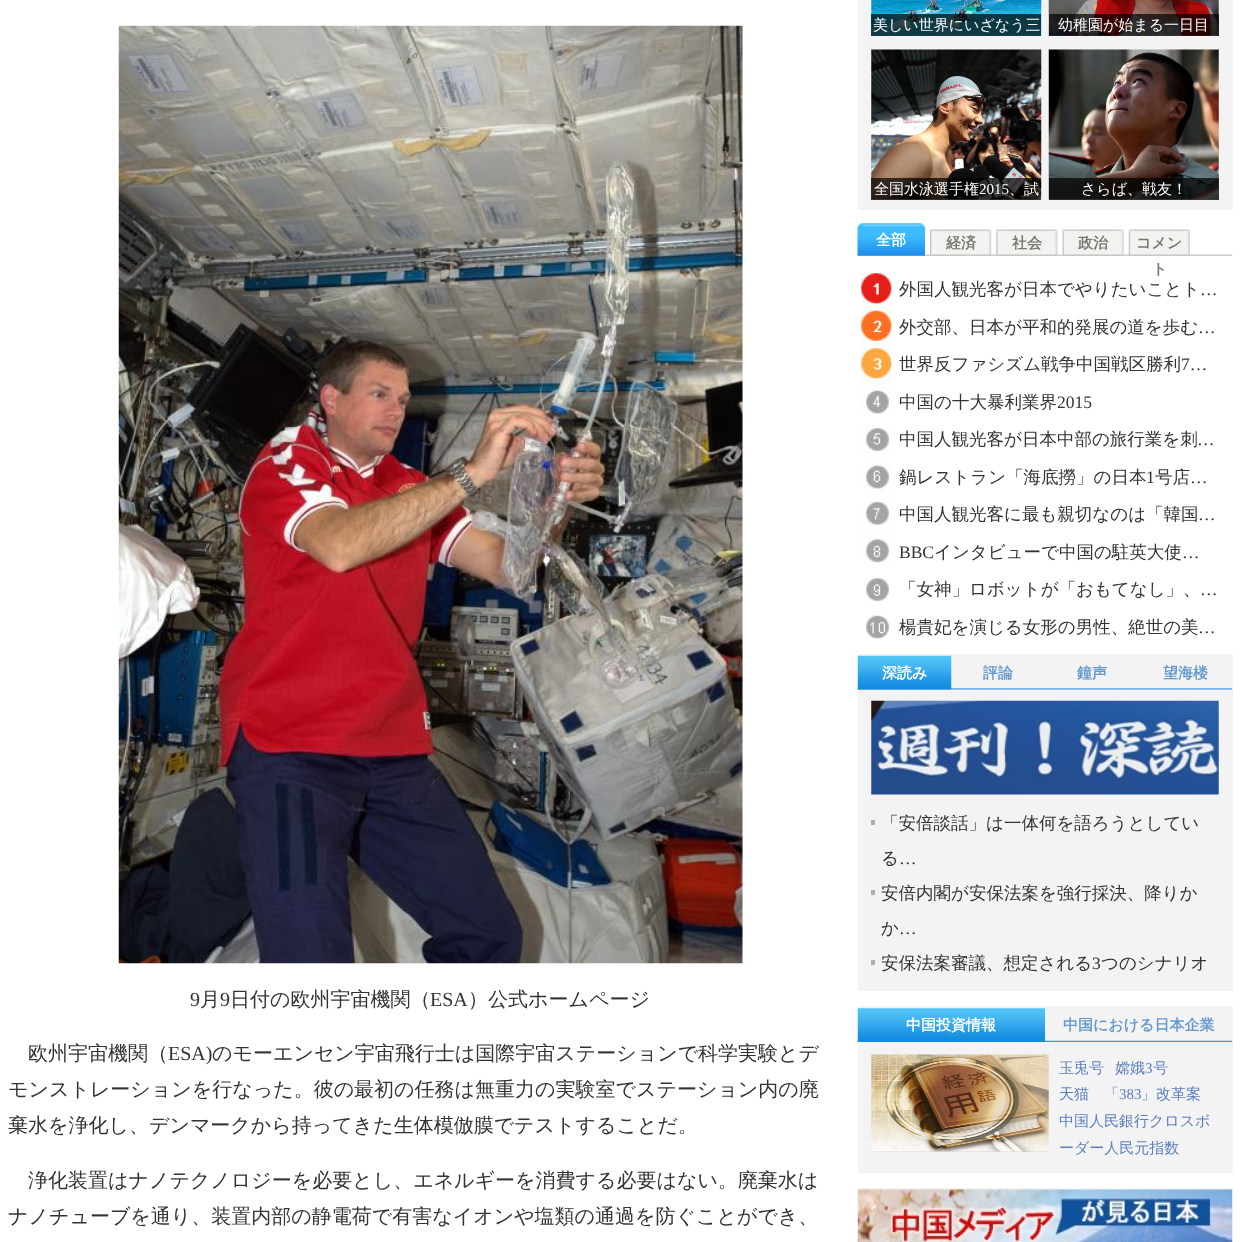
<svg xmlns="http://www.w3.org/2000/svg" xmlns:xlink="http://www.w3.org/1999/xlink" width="1240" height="1242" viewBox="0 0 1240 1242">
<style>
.cls-1{font:20px Liberation Serif;fill:#333333}
.cls-2{font:500 20px WenQuanYi Zen Hei;fill:#333333}
.cls-3{font:500 15px WenQuanYi Zen Hei;fill:#ffffff}
.cls-4{font:15px Liberation Serif;fill:#ffffff}
.cls-5{font:bold 15px WenQuanYi Zen Hei;fill:#ffffff}
.cls-6{font:bold 15px WenQuanYi Zen Hei;fill:#787871}
.cls-7{font:500 17.5px WenQuanYi Zen Hei;fill:#333333}
.cls-8{font:17.5px Liberation Serif;fill:#333333}
.cls-9{font:bold 15px WenQuanYi Zen Hei;fill:#6699cc}
.cls-10{font:500 15px WenQuanYi Zen Hei;fill:#5d80ba}
.cls-11{font:15px Liberation Serif;fill:#5d80ba}
</style>
<rect width="100%" height="100%" fill="#ffffff"/>
<image xlink:href="image0.png" x="118" y="25" width="625" height="939"/>
<rect fill="#f3f3f3" x="858" y="0" width="375" height="210"/>
<image xlink:href="image1.png" x="871" y="0" width="171" height="36"/>
<rect fill="#000000" fill-opacity="0.7" x="871" y="14" width="170" height="22"/>
<image xlink:href="image2.png" x="1048" y="0" width="171" height="36"/>
<rect fill="#000000" fill-opacity="0.7" x="1049" y="14" width="170" height="22"/>
<image xlink:href="image3.png" x="871" y="49" width="171" height="151"/>
<rect fill="#000000" fill-opacity="0.7" x="871" y="178" width="170" height="22"/>
<image xlink:href="image4.png" x="1048" y="49" width="171" height="151"/>
<rect fill="#000000" fill-opacity="0.7" x="1049" y="178" width="170" height="22"/>
<image xlink:href="image5.png" x="857" y="254" width="376" height="2"/>
<image xlink:href="image6.png" x="857" y="223" width="68" height="33"/>
<image xlink:href="image7.png" x="930" y="226" width="62" height="30"/>
<image xlink:href="image8.png" x="996" y="226" width="62" height="30"/>
<image xlink:href="image9.png" x="1062" y="226" width="62" height="30"/>
<image xlink:href="image10.png" x="1128" y="229" width="62" height="27"/>
<image xlink:href="image11.png" x="861" y="273" width="31" height="366"/>
<rect fill="#f3f3f3" x="858" y="654" width="375" height="337"/>
<image xlink:href="image12.png" x="857" y="688" width="376" height="2"/>
<image xlink:href="image13.png" x="857" y="655" width="95" height="35"/>
<image xlink:href="image14.png" x="871" y="700" width="348" height="95"/>
<rect fill="#aeaeae" x="871" y="820" width="4" height="5"/>
<rect fill="#aeaeae" x="871" y="890" width="4" height="5"/>
<rect fill="#aeaeae" x="871" y="960" width="4" height="5"/>
<rect fill="#f3f3f3" x="858" y="1006" width="375" height="167"/>
<image xlink:href="image15.png" x="857" y="1040" width="376" height="2"/>
<image xlink:href="image16.png" x="857" y="1008" width="188" height="34"/>
<image xlink:href="image17.png" x="871" y="1054" width="178" height="98"/>
<rect fill="#f3f3f3" x="858" y="1188" width="375" height="54"/>
<image xlink:href="image18.png" x="857" y="1189" width="376" height="53"/>
<text class="cls-1" x="190" y="1006">9</text>
<text class="cls-2" x="200" y="1006">月</text>
<text class="cls-1" x="220" y="1006">9</text>
<text class="cls-2" x="230" y="1006">日付の欧州宇宙機関（</text>
<text class="cls-1" x="430" y="1006">ESA</text>
<text class="cls-2" x="468" y="1006">）公式ホームページ</text>
<text class="cls-2" x="28" y="1060">欧州宇宙機関（</text>
<text class="cls-1" x="168" y="1060">ESA)</text>
<text class="cls-2" x="212" y="1060">のモーエンセン宇宙飛行士は国際宇宙ステーションで科学実験とデ</text>
<text class="cls-2"><tspan x="8" y="1096">モンストレーションを行なった。彼の最初の任務は無重力の実験室でステーション内の廃</tspan><tspan x="8" y="1132">棄水を浄化し、デンマークから持ってきた生体模倣膜でテストすることだ。</tspan></text>
<text class="cls-2" x="28" y="1187">浄化装置はナノテクノロジーを必要とし、エネルギーを消費する必要はない。廃棄水は</text>
<text class="cls-2" x="8" y="1223">ナノチューブを通り、装置内部の静電荷で有害なイオンや塩類の通過を防ぐことができ、</text>
<text class="cls-3" x="873" y="30">美しい世界にいざなう三</text>
<text class="cls-3" x="1058" y="30">幼稚園が始まる一日目</text>
<text class="cls-3" x="874" y="194">全国水泳選手権</text>
<text class="cls-4" x="979" y="194">2015</text>
<text class="cls-3" x="1009" y="194">、試</text>
<text class="cls-3" x="1081" y="194">さらば、戦友！</text>
<text class="cls-5" x="876" y="245">全部</text>
<text class="cls-6" x="946" y="248">経済</text>
<text class="cls-6" x="1012" y="248">社会</text>
<text class="cls-6" x="1078" y="248">政治</text>
<text class="cls-6" x="1136" y="248">コメン</text>
<text class="cls-6" x="1152" y="274">ト</text>
<text class="cls-7" x="899" y="295">外国人観光客が日本でやりたいことト</text>
<text class="cls-8" x="1200" y="295">…</text>
<text class="cls-7" x="899" y="333">外交部、日本が平和的発展の道を歩む</text>
<text class="cls-8" x="1198" y="333">…</text>
<text class="cls-7" x="899" y="370">世界反ファシズム戦争中国戦区勝利</text>
<text class="cls-8" x="1181" y="370">7…</text>
<text class="cls-7" x="899" y="408">中国の十大暴利業界</text>
<text class="cls-8" x="1057" y="408">2015</text>
<text class="cls-7" x="899" y="445">中国人観光客が日本中部の旅行業を刺</text>
<text class="cls-8" x="1197" y="445">…</text>
<text class="cls-7" x="899" y="483">鍋レストラン「海底撈」の日本</text>
<text class="cls-8" x="1146" y="483">1</text>
<text class="cls-7" x="1155" y="483">号店</text>
<text class="cls-8" x="1190" y="483">…</text>
<text class="cls-7" x="899" y="520">中国人観光客に最も親切なのは「韓国</text>
<text class="cls-8" x="1198" y="520">…</text>
<text class="cls-8" x="899" y="558">BBC</text>
<text class="cls-7" x="934" y="558">インタビューで中国の駐英大使</text>
<text class="cls-8" x="1182" y="558">…</text>
<text class="cls-7" x="899" y="595">「女神」ロボットが「おもてなし」、</text>
<text class="cls-8" x="1200" y="595">…</text>
<text class="cls-7" x="899" y="633">楊貴妃を演じる女形の男性、絶世の美</text>
<text class="cls-8" x="1198" y="633">…</text>
<text class="cls-5" x="882" y="678">深読み</text>
<text class="cls-9" x="983" y="678">評論</text>
<text class="cls-9" x="1077" y="678">鐘声</text>
<text class="cls-9" x="1163" y="678">望海楼</text>
<text class="cls-7" x="881" y="829">「安倍談話」は一体何を語ろうとしてい</text>
<text class="cls-7" x="881" y="864">る</text>
<text class="cls-8" x="899" y="864">…</text>
<text class="cls-7" x="881" y="899">安倍内閣が安保法案を強行採決、降りか</text>
<text class="cls-7" x="881" y="934">か</text>
<text class="cls-8" x="899" y="934">…</text>
<text class="cls-7" x="881" y="969">安保法案審議、想定される</text>
<text class="cls-8" x="1092" y="969">3</text>
<text class="cls-7" x="1101" y="969">つのシナリオ</text>
<text class="cls-5" x="906" y="1030">中国投資情報</text>
<text class="cls-9" x="1063" y="1030">中国における日本企業</text>
<text class="cls-10" x="1059" y="1073">玉兎号</text>
<text class="cls-10" x="1115" y="1073">嫦娥</text>
<text class="cls-11" x="1145" y="1073">3</text>
<text class="cls-10" x="1153" y="1073">号</text>
<text class="cls-10" x="1059" y="1099">天猫</text>
<text class="cls-10" x="1104" y="1099">「</text>
<text class="cls-11" x="1119" y="1099">383</text>
<text class="cls-10" x="1141" y="1099">」改革案</text>
<text class="cls-10"><tspan x="1059" y="1126">中国人民銀行クロスボ</tspan><tspan x="1059" y="1153">ーダー人民元指数</tspan></text>
</svg>
